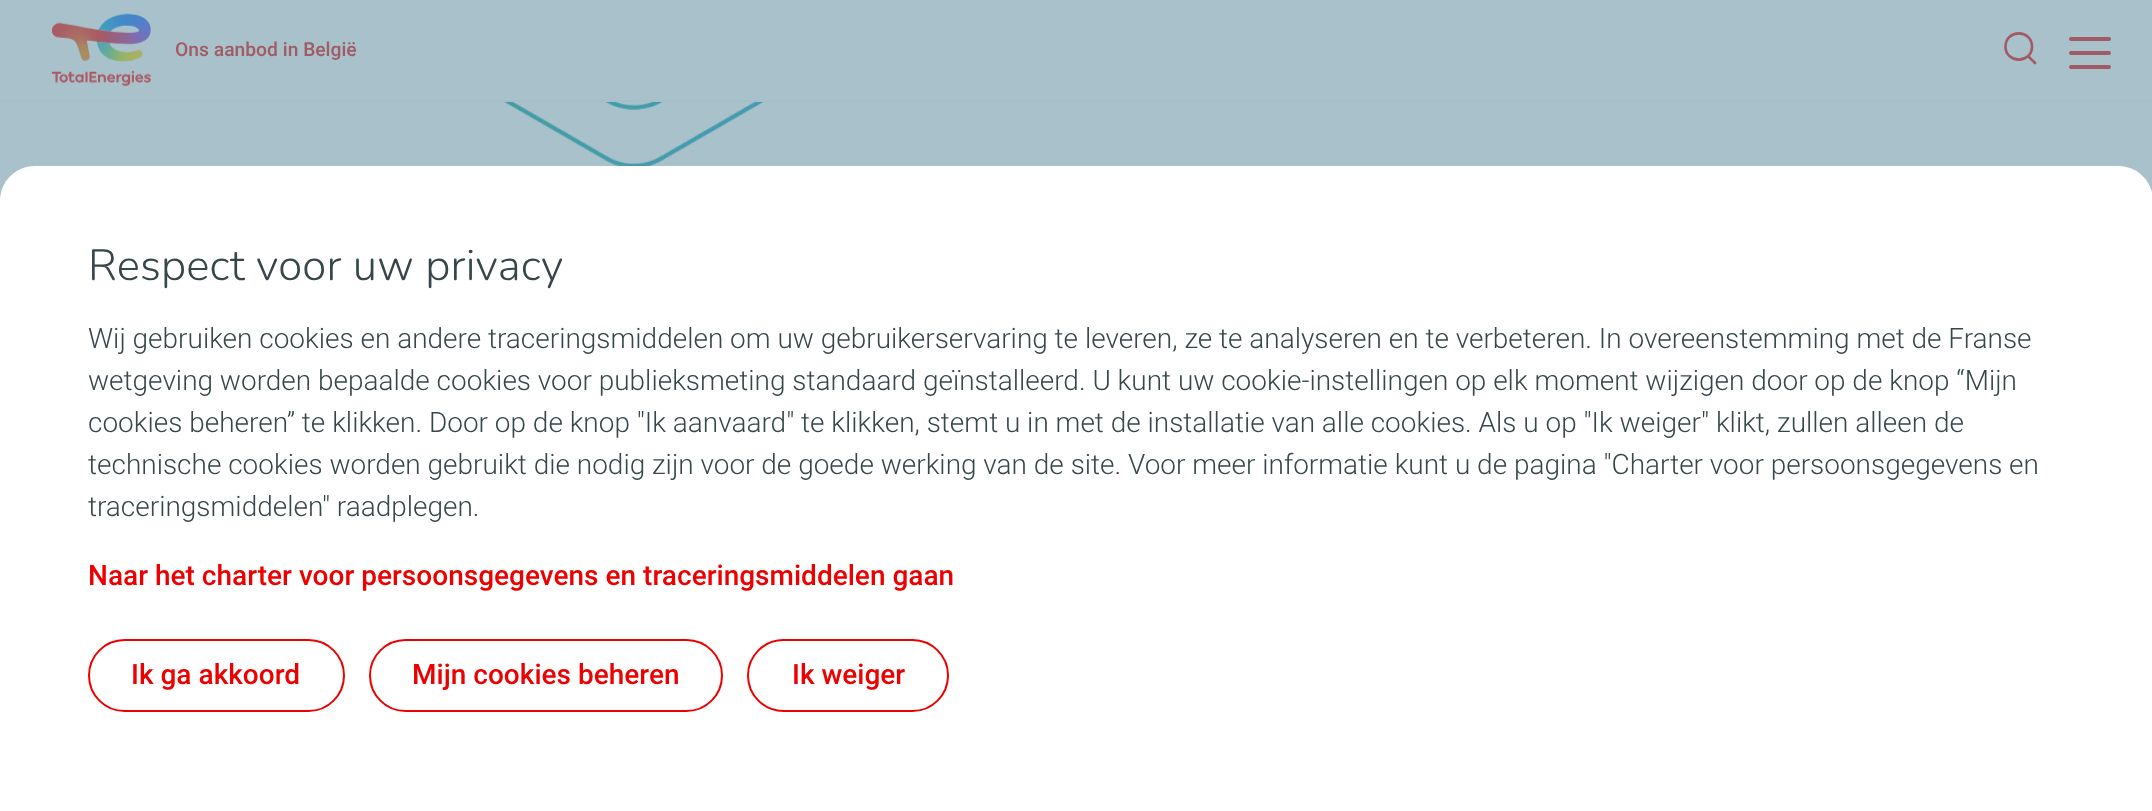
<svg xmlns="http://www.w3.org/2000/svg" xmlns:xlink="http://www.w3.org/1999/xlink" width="2152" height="811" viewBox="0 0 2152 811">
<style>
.cls-1{font:500 19.25px Roboto;fill:#a05b64}
.cls-2{font:300 43.75px Nunito;letter-spacing:0.2px;fill:#374649}
.cls-3{font:300 28px Roboto;fill:#374649}
.cls-4{font:500 28px Roboto;fill:#ed0000}
</style>
<rect width="100%" height="100%" fill="#a9c1ca"/>
<rect fill="#a5bfc9" x="0" y="100" width="2152" height="2"/>
<image xlink:href="image0.png" x="51" y="13" width="100" height="73"/>
<path fill="none" stroke="#a05b64" stroke-width="2.6" stroke-linecap="round" stroke-linejoin="round" d="M2035 63L2028 56M2032 46.5C2032 64 2005.5 64 2005.5 46.5C2005.5 29 2032 29 2032 46.5Z"/>
<rect fill="#a05b64" x="2069" y="37" width="42" height="4" rx="2"/>
<rect fill="#a05b64" x="2069" y="51" width="42" height="4" rx="2"/>
<rect fill="#a05b64" x="2069" y="65" width="42" height="4" rx="2"/>
<image xlink:href="image1.png" x="327" y="102" width="614" height="64"/>
<path fill="#ffffff" d="M35 166H2118C2137.5 166 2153 181.5 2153 201V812H0V201C0 181.5 15.5 166 35 166Z"/>
<rect fill="none" stroke="#ed0000" stroke-width="2" x="89" y="640" width="255" height="71" rx="35.5"/>
<rect fill="none" stroke="#ed0000" stroke-width="2" x="370" y="640" width="352" height="71" rx="35.5"/>
<rect fill="none" stroke="#ed0000" stroke-width="2" x="748" y="640" width="200" height="71" rx="35.5"/>
<text class="cls-1" x="175" y="56">Ons aanbod in België</text>
<text class="cls-2" x="88" y="280">Respect voor uw privacy</text>
<text class="cls-3"><tspan x="88" y="348">Wij gebruiken cookies en andere traceringsmiddelen om uw gebruikerservaring te leveren, ze te analyseren en te verbeteren. In overeenstemming met de Franse</tspan><tspan x="88" y="390">wetgeving worden bepaalde cookies voor publieksmeting standaard geïnstalleerd. U kunt uw cookie-instellingen op elk moment wijzigen door op de knop “Mijn</tspan><tspan x="88" y="432">cookies beheren” te klikken. Door op de knop "Ik aanvaard" te klikken, stemt u in met de installatie van alle cookies. Als u op "Ik weiger" klikt, zullen alleen de</tspan><tspan x="88" y="474">technische cookies worden gebruikt die nodig zijn voor de goede werking van de site. Voor meer informatie kunt u de pagina "Charter voor persoonsgegevens en</tspan><tspan x="88" y="516">traceringsmiddelen" raadplegen.</tspan></text>
<text class="cls-4" x="88" y="585">Naar het charter voor persoonsgegevens en traceringsmiddelen gaan</text>
<text class="cls-4" x="131" y="684">Ik ga akkoord</text>
<text class="cls-4" x="412" y="684">Mijn cookies beheren</text>
<text class="cls-4" x="792" y="684">Ik weiger</text>
</svg>
